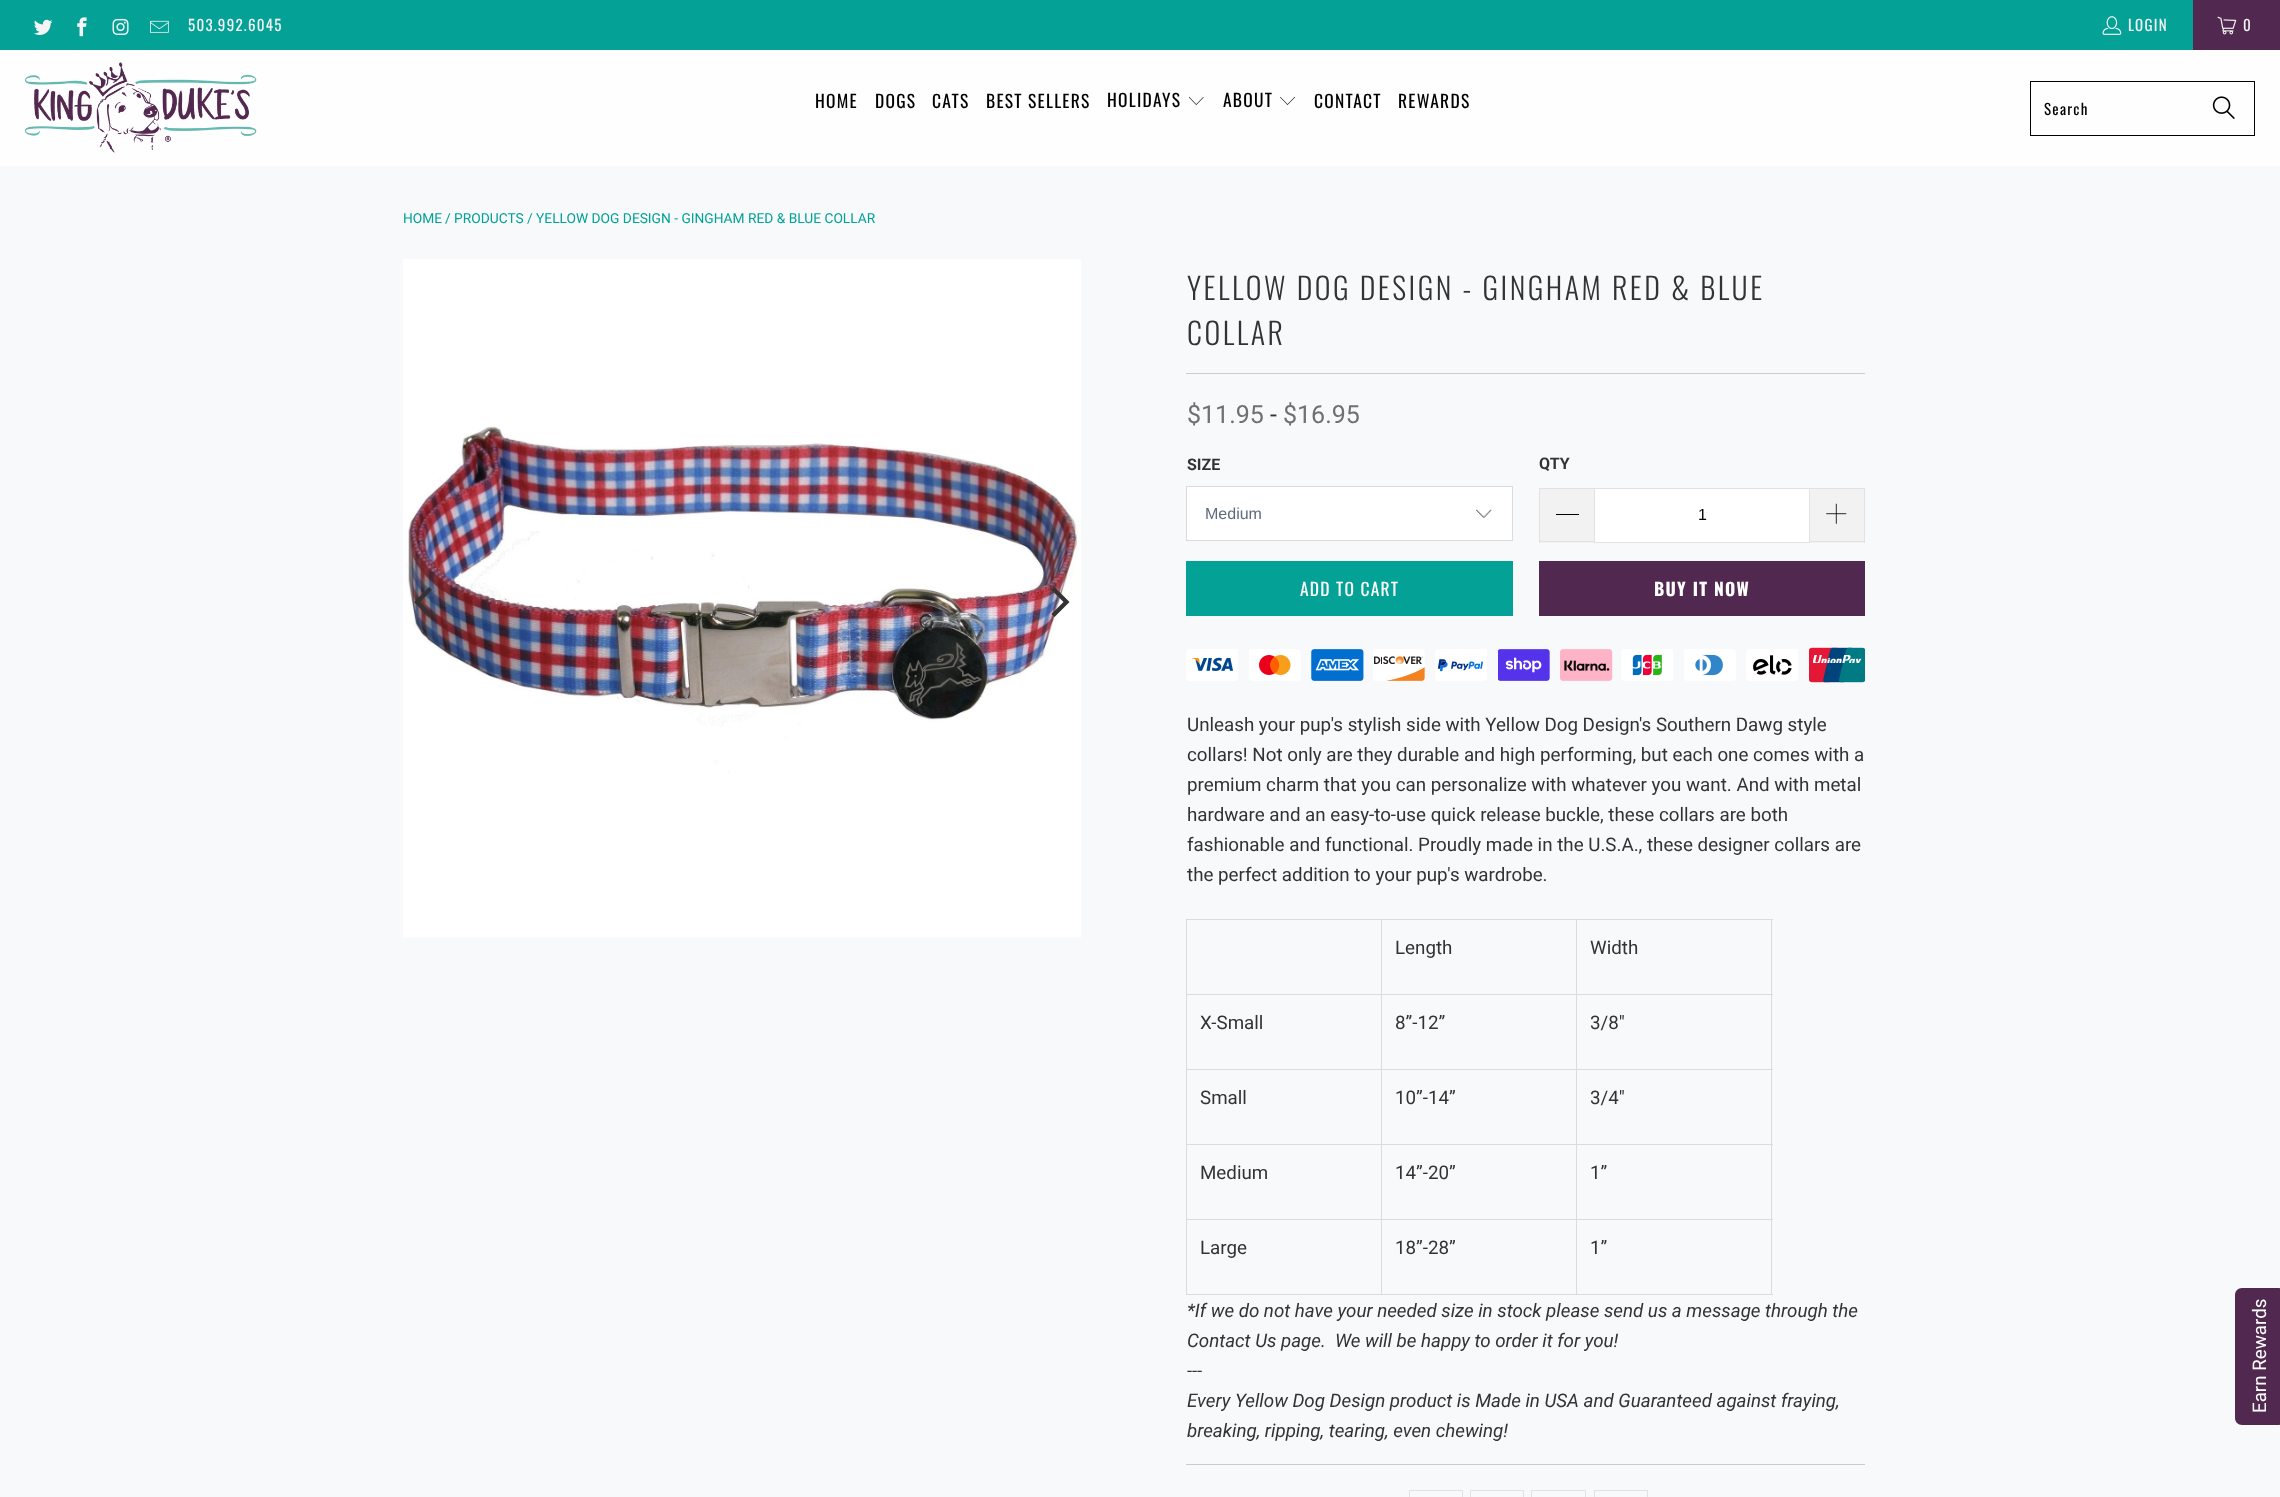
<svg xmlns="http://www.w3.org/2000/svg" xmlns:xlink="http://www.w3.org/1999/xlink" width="2280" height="1497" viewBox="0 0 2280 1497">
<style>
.cls-1{font:15px Oswald;letter-spacing:1.25px;fill:#f4f4f4}
.cls-2{font:17.5px Oswald;letter-spacing:1.25px;fill:#000000}
.cls-3{font:15px Oswald;letter-spacing:1.25px;fill:#000000}
.cls-4{font:13.75px Roboto;fill:#03a196}
.cls-5{font:300 30px Oswald;letter-spacing:2.5px;fill:#333333}
.cls-6{font:25px Roboto;fill:#707070}
.cls-7{font:25px Roboto;fill:#333333}
.cls-8{font:bold 16px Roboto;fill:#333333}
.cls-9{font:16px Liberation Sans;fill:#5f6a7d}
.cls-10{font:16px Liberation Sans;fill:#000000}
.cls-11{font:17.5px Oswald;letter-spacing:1.25px;fill:#ffffff}
.cls-12{font:bold 17.5px Oswald;letter-spacing:1.25px;fill:#ffffff}
.cls-13{font:18.75px Roboto;fill:#333333}
.cls-14{font:italic 18.75px Roboto;fill:#333333}
.cls-15{font:18.75px Roboto;fill:#ffffff}
</style>
<rect width="100%" height="100%" fill="#f7f9fb"/>
<rect fill="#03a196" x="0" y="0" width="2193" height="50"/>
<image xlink:href="image0.png" x="34" y="19" width="19" height="16"/>
<image xlink:href="image1.png" x="77" y="17" width="10" height="20"/>
<image xlink:href="image2.png" x="112" y="18" width="17" height="17"/>
<image xlink:href="image3.png" x="150" y="20" width="19" height="13"/>
<image xlink:href="image4.png" x="2102" y="16" width="20" height="19"/>
<rect fill="#51284f" x="2193" y="0" width="87" height="50"/>
<image xlink:href="image5.png" x="2217" y="16" width="20" height="19"/>
<rect fill="#fefeff" x="0" y="50" width="2280" height="116"/>
<image xlink:href="image6.png" x="25" y="62" width="232" height="91"/>
<image xlink:href="image7.png" x="1188" y="97" width="16" height="8"/>
<image xlink:href="image8.png" x="1280" y="97" width="15" height="8"/>
<rect fill="none" stroke="#000000" x="2030.5" y="81.5" width="224" height="54"/>
<image xlink:href="image9.png" x="2212" y="96" width="23" height="23"/>
<image xlink:href="image10.png" x="403" y="259" width="678" height="679"/>
<path fill="#333333" d="M414 602L429 617L432 614L420 602L432 590L429 587Z"/>
<path fill="#333333" d="M1069.5 602L1054.5 587L1051.5 590L1063.5 602L1051.5 614L1054.5 617Z"/>
<rect fill="#cccccc" x="1186" y="373" width="679" height="1"/>
<rect fill="#ffffff" x="1187" y="487" width="325" height="53"/>
<image xlink:href="image11.png" x="1476" y="509" width="16" height="10"/>
<rect fill="none" stroke="#d9dbdc" x="1186.5" y="486.5" width="326" height="54"/>
<rect fill="#f2f2f2" x="1540" y="489" width="54" height="54"/>
<rect fill="#e2e2e2" x="1539" y="488" width="55" height="1"/>
<rect fill="#e2e2e2" x="1539" y="541" width="55" height="1"/>
<rect fill="#e2e2e2" x="1539" y="488" width="1" height="55"/>
<rect fill="#000000" x="1556" y="514" width="23" height="1"/>
<rect fill="#ffffff" stroke="#e2e2e2" x="1594.5" y="488.5" width="215" height="54"/>
<rect fill="#f2f2f2" x="1810" y="489" width="54" height="54"/>
<rect fill="#e2e2e2" x="1810" y="488" width="55" height="1"/>
<rect fill="#e2e2e2" x="1864" y="488" width="1" height="55"/>
<rect fill="#e2e2e2" x="1810" y="541" width="55" height="1"/>
<image xlink:href="image12.png" x="1826" y="503" width="21" height="21"/>
<rect fill="#03a196" x="1186" y="561" width="327" height="55"/>
<rect fill="#51284f" x="1539" y="561" width="326" height="55"/>
<image xlink:href="image13.png" x="1186" y="649" width="52" height="32"/>
<image xlink:href="image14.png" x="1249" y="649" width="52" height="32"/>
<image xlink:href="image15.png" x="1311" y="649" width="53" height="32"/>
<image xlink:href="image16.png" x="1373" y="649" width="52" height="32"/>
<image xlink:href="image17.png" x="1435" y="649" width="52" height="32"/>
<image xlink:href="image18.png" x="1498" y="649" width="52" height="32"/>
<image xlink:href="image19.png" x="1560" y="649" width="53" height="32"/>
<image xlink:href="image20.png" x="1621" y="649" width="52" height="32"/>
<image xlink:href="image21.png" x="1684" y="649" width="52" height="32"/>
<image xlink:href="image22.png" x="1746" y="649" width="52" height="32"/>
<image xlink:href="image23.png" x="1809" y="647" width="56" height="36"/>
<rect fill="#dcdcdc" x="1186" y="919" width="587" height="1"/>
<rect fill="#dcdcdc" x="1186" y="994" width="587" height="1"/>
<rect fill="#dcdcdc" x="1186" y="1069" width="587" height="1"/>
<rect fill="#dcdcdc" x="1186" y="1144" width="587" height="1"/>
<rect fill="#dcdcdc" x="1186" y="1219" width="587" height="1"/>
<rect fill="#dcdcdc" x="1186" y="1294" width="587" height="1"/>
<rect fill="#dcdcdc" x="1381" y="919" width="1" height="376"/>
<rect fill="#dcdcdc" x="1186" y="919" width="1" height="376"/>
<rect fill="#dcdcdc" x="1576" y="919" width="1" height="376"/>
<rect fill="#dcdcdc" x="1771" y="919" width="1" height="376"/>
<rect fill="#cccccc" x="1186" y="1464" width="679" height="1"/>
<rect fill="none" stroke="#e2e2e2" x="1409.5" y="1490.5" width="53" height="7"/>
<rect fill="none" stroke="#e2e2e2" x="1470.5" y="1490.5" width="53" height="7"/>
<rect fill="none" stroke="#e2e2e2" x="1531.5" y="1490.5" width="54" height="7"/>
<rect fill="none" stroke="#e2e2e2" x="1594.5" y="1490.5" width="53" height="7"/>
<path fill="#51284f" d="M2235 1418V1295C2235 1291 2238 1288 2242 1288H2278C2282 1288 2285 1291 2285 1295V1418C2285 1422 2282 1425 2278 1425H2242C2238 1425 2235 1422 2235 1418Z"/>
<text class="cls-1" x="188" y="31">503.992.6045</text>
<text class="cls-1" x="2128" y="31">LOGIN</text>
<text class="cls-1" x="2243" y="31">0</text>
<text class="cls-2" x="815" y="108">HOME</text>
<text class="cls-2" x="875" y="108">DOGS</text>
<text class="cls-2" x="932" y="108">CATS</text>
<text class="cls-2" x="986" y="108">BEST SELLERS</text>
<text class="cls-2" x="1107" y="107">HOLIDAYS</text>
<text class="cls-2" x="1223" y="107">ABOUT</text>
<text class="cls-2" x="1314" y="108">CONTACT</text>
<text class="cls-2" x="1398" y="108">REWARDS</text>
<text class="cls-3" x="2044" y="115">Search</text>
<text class="cls-4" x="403" y="223">HOME</text>
<text class="cls-4" x="445" y="223">/ PRODUCTS</text>
<text class="cls-4" x="527" y="223">/ YELLOW DOG DESIGN - GINGHAM RED &amp; BLUE COLLAR</text>
<text class="cls-5"><tspan x="1187" y="300">YELLOW DOG DESIGN - GINGHAM RED &amp; BLUE</tspan><tspan x="1187" y="345">COLLAR</tspan></text>
<text class="cls-6" x="1187" y="423">$11.95</text>
<text class="cls-7" x="1270" y="423">-</text>
<text class="cls-6" x="1283" y="423">$16.95</text>
<text class="cls-8" x="1187" y="470">SIZE</text>
<text class="cls-9" x="1205" y="519">Medium</text>
<text class="cls-8" x="1539" y="469">QTY</text>
<text class="cls-10" x="1698" y="520">1</text>
<text class="cls-11" x="1300" y="596">ADD TO CART</text>
<text class="cls-12" x="1654" y="596">BUY IT NOW</text>
<text class="cls-13"><tspan x="1187" y="731">Unleash your pup's stylish side with Yellow Dog Design's Southern Dawg style</tspan><tspan x="1187" y="761">collars! Not only are they durable and high performing, but each one comes with a</tspan><tspan x="1187" y="791">premium charm that you can personalize with whatever you want. And with metal</tspan><tspan x="1187" y="821">hardware and an easy-to-use quick release buckle, these collars are both</tspan><tspan x="1187" y="851">fashionable and functional. Proudly made in the U.S.A., these designer collars are</tspan><tspan x="1187" y="881">the perfect addition to your pup's wardrobe.</tspan></text>
<text class="cls-13" x="1395" y="954">Length</text>
<text class="cls-13" x="1590" y="954">Width</text>
<text class="cls-13" x="1200" y="1029">X-Small</text>
<text class="cls-13" x="1395" y="1029">8”-12”</text>
<text class="cls-13" x="1590" y="1029">3/8"</text>
<text class="cls-13" x="1200" y="1104">Small</text>
<text class="cls-13" x="1395" y="1104">10”-14”</text>
<text class="cls-13" x="1590" y="1104">3/4"</text>
<text class="cls-13" x="1200" y="1179">Medium</text>
<text class="cls-13" x="1395" y="1179">14”-20”</text>
<text class="cls-13" x="1590" y="1179">1”</text>
<text class="cls-13" x="1200" y="1254">Large</text>
<text class="cls-13" x="1395" y="1254">18”-28”</text>
<text class="cls-13" x="1590" y="1254">1”</text>
<text class="cls-14" xml:space="preserve"><tspan x="1187" y="1317">*If we do not have your needed size in stock please send us a message through the</tspan><tspan x="1187" y="1347">Contact Us page.  We will be happy to order it for you!</tspan><tspan x="1187" y="1377">---</tspan><tspan x="1187" y="1407">Every Yellow Dog Design product is Made in USA and Guaranteed against fraying,</tspan><tspan x="1187" y="1437">breaking, ripping, tearing, even chewing!</tspan></text>
<text class="cls-15" x="2266" y="1413" transform="rotate(-90 2266 1413)">Earn Rewards</text>
</svg>
